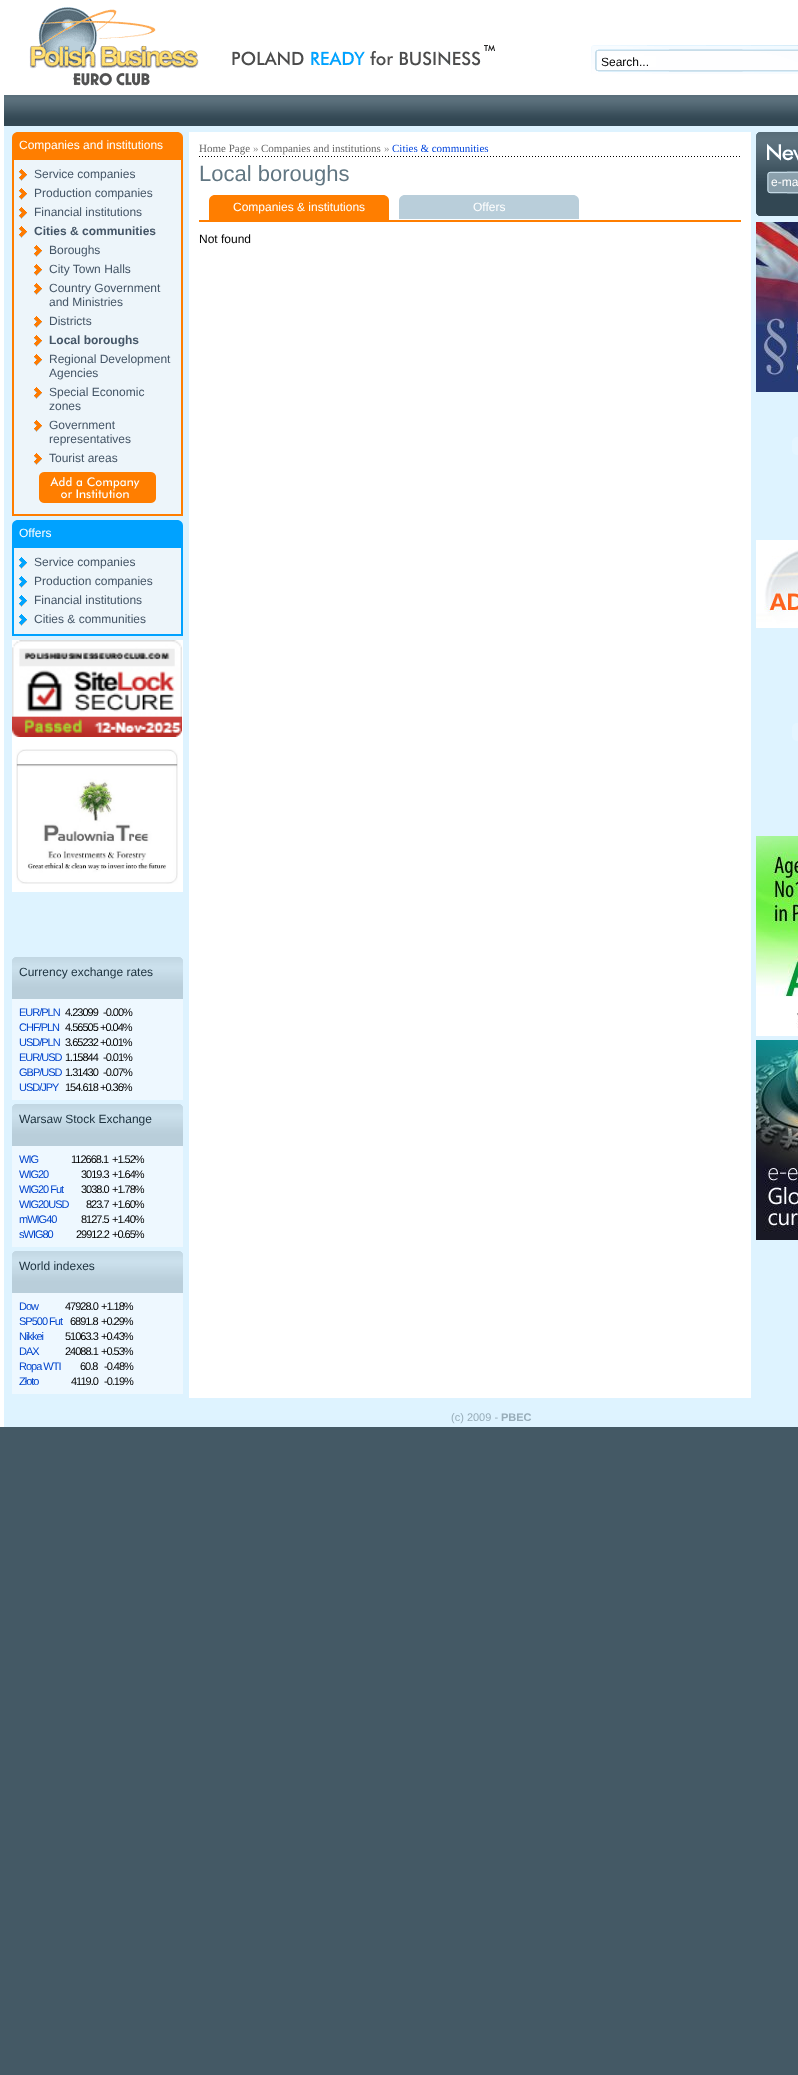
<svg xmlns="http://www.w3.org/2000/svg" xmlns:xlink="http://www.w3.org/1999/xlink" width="798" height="2075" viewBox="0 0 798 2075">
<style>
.cls-1{font:12px Liberation Sans;fill:#000000}
.cls-2{font:12px Liberation Sans;fill:#ffffff}
.cls-3{font:12px Liberation Sans;fill:#445566}
.cls-4{font:bold 12px Liberation Sans;fill:#445566}
.cls-5{font:12px Liberation Sans;fill:#1b303d}
.cls-6{font:11px Liberation Sans;letter-spacing:-1px;fill:#0044cc}
.cls-7{font:11px Liberation Sans;letter-spacing:-1px;fill:#000000}
.cls-8{font:11px Liberation Serif;fill:#666666}
.cls-9{font:11px Liberation Serif;fill:#999999}
.cls-10{font:11px Liberation Serif;fill:#0044dd}
.cls-11{font:22px Liberation Sans;fill:#617682}
.cls-12{font:11px Liberation Sans;fill:#98adb9}
.cls-13{font:bold 11px Liberation Sans;fill:#98adb9}
</style>
<rect width="100%" height="100%" fill="#445965"/>
<rect fill="#ffffff" x="0" y="0" width="798" height="1427"/>
<image xlink:href="image0.png" x="29" y="7" width="170" height="79"/>
<image xlink:href="image1.png" x="232" y="44" width="263" height="22"/>
<image xlink:href="image2.png" x="591" y="45" width="207" height="29"/>
<image xlink:href="image3.png" x="4" y="95" width="794" height="31"/>
<rect fill="#def3ff" x="4" y="126" width="794" height="1301"/>
<path fill="#ff7e00" d="M18 132H177C180.5 132 183 134.5 183 138V158H12V138C12 134.5 14.5 132 18 132Z"/>
<rect fill="#edf5fa" stroke="#ff7e00" stroke-width="2" x="13" y="159" width="169" height="356"/>
<image xlink:href="image4.png" x="19" y="169" width="8" height="12"/>
<image xlink:href="image4.png" x="19" y="188" width="8" height="12"/>
<image xlink:href="image4.png" x="19" y="207" width="8" height="12"/>
<image xlink:href="image4.png" x="19" y="226" width="8" height="12"/>
<image xlink:href="image4.png" x="34" y="245" width="8" height="12"/>
<image xlink:href="image4.png" x="34" y="264" width="8" height="12"/>
<image xlink:href="image4.png" x="34" y="283" width="8" height="12"/>
<image xlink:href="image4.png" x="34" y="316" width="8" height="12"/>
<image xlink:href="image4.png" x="34" y="335" width="8" height="12"/>
<image xlink:href="image4.png" x="34" y="354" width="8" height="12"/>
<image xlink:href="image4.png" x="34" y="387" width="8" height="12"/>
<image xlink:href="image4.png" x="34" y="420" width="8" height="12"/>
<image xlink:href="image4.png" x="34" y="453" width="8" height="12"/>
<image xlink:href="image5.png" x="39" y="472" width="117" height="31"/>
<path fill="#00a2ff" d="M18 520H177C180.5 520 183 522.5 183 526V546H12V526C12 522.5 14.5 520 18 520Z"/>
<rect fill="#edf5fa" stroke="#00a2ff" stroke-width="2" x="13" y="547" width="169" height="88"/>
<image xlink:href="image6.png" x="19" y="557" width="8" height="12"/>
<image xlink:href="image6.png" x="19" y="576" width="8" height="12"/>
<image xlink:href="image6.png" x="19" y="595" width="8" height="12"/>
<image xlink:href="image6.png" x="19" y="614" width="8" height="12"/>
<rect fill="#ffffff" x="12" y="640" width="171" height="252"/>
<image xlink:href="image7.png" x="12" y="640" width="170" height="97"/>
<image xlink:href="image8.png" x="16" y="749" width="162" height="135"/>
<image xlink:href="image9.png" x="12" y="957" width="171" height="42"/>
<rect fill="#eef8ff" x="12" y="999" width="171" height="101"/>
<image xlink:href="image9.png" x="12" y="1104" width="171" height="42"/>
<rect fill="#eef8ff" x="12" y="1146" width="171" height="101"/>
<image xlink:href="image9.png" x="12" y="1251" width="171" height="42"/>
<rect fill="#eef8ff" x="12" y="1293" width="171" height="101"/>
<rect fill="#ffffff" x="189" y="132" width="562" height="1266"/>
<image xlink:href="image10.png" x="199" y="156" width="541" height="1"/>
<rect fill="#ff7e00" x="199" y="220" width="542" height="2"/>
<path fill="#ff7e00" d="M215 195H383C386.5 195 389 197.5 389 201V220H209V201C209 197.5 211.5 195 215 195Z"/>
<path fill="#b9ceda" d="M405 195H573C576.5 195 579 197.5 579 201V219H399V201C399 197.5 401.5 195 405 195Z"/>
<image xlink:href="image11.png" x="756" y="132" width="42" height="84"/>
<image xlink:href="image12.png" x="756" y="222" width="42" height="170"/>
<image xlink:href="image13.png" x="792" y="437" width="6" height="18"/>
<image xlink:href="image14.png" x="756" y="540" width="42" height="88"/>
<image xlink:href="image13.png" x="792" y="723" width="6" height="18"/>
<image xlink:href="image15.png" x="756" y="836" width="42" height="200"/>
<image xlink:href="image16.png" x="756" y="1040" width="42" height="200"/>
<text class="cls-1" x="601" y="66">Search...</text>
<text class="cls-2" x="19" y="149">Companies and institutions</text>
<text class="cls-3"><tspan x="34" y="178">Service companies</tspan><tspan x="34" y="197">Production companies</tspan><tspan x="34" y="216">Financial institutions</tspan></text>
<text class="cls-4" x="34" y="235">Cities &amp; communities</text>
<text class="cls-3"><tspan x="49" y="254">Boroughs</tspan><tspan x="49" y="273">City Town Halls</tspan><tspan x="49" y="292">Country Government</tspan><tspan x="49" y="306">and Ministries</tspan><tspan x="49" y="325">Districts</tspan></text>
<text class="cls-4" x="49" y="344">Local boroughs</text>
<text class="cls-3"><tspan x="49" y="363">Regional Development</tspan><tspan x="49" y="377">Agencies</tspan><tspan x="49" y="396">Special Economic</tspan><tspan x="49" y="410">zones</tspan><tspan x="49" y="429">Government</tspan><tspan x="49" y="443">representatives</tspan><tspan x="49" y="462">Tourist areas</tspan></text>
<text class="cls-2" x="19" y="537">Offers</text>
<text class="cls-3"><tspan x="34" y="566">Service companies</tspan><tspan x="34" y="585">Production companies</tspan><tspan x="34" y="604">Financial institutions</tspan><tspan x="34" y="623">Cities &amp; communities</tspan></text>
<text class="cls-5" x="19" y="976">Currency exchange rates</text>
<text class="cls-6" x="19" y="1016">EUR/PLN</text>
<text class="cls-7" x="65" y="1016">4.23099</text>
<text class="cls-7" x="103" y="1016">-0.00%</text>
<text class="cls-6" x="19" y="1031">CHF/PLN</text>
<text class="cls-7" x="65" y="1031">4.56505</text>
<text class="cls-7" x="100" y="1031">+0.04%</text>
<text class="cls-6" x="19" y="1046">USD/PLN</text>
<text class="cls-7" x="65" y="1046">3.65232</text>
<text class="cls-7" x="100" y="1046">+0.01%</text>
<text class="cls-6" x="19" y="1061">EUR/USD</text>
<text class="cls-7" x="65" y="1061">1.15844</text>
<text class="cls-7" x="103" y="1061">-0.01%</text>
<text class="cls-6" x="19" y="1076">GBP/USD</text>
<text class="cls-7" x="65" y="1076">1.31430</text>
<text class="cls-7" x="103" y="1076">-0.07%</text>
<text class="cls-6" x="19" y="1091">USD/JPY</text>
<text class="cls-7" x="65" y="1091">154.618</text>
<text class="cls-7" x="100" y="1091">+0.36%</text>
<text class="cls-5" x="19" y="1123">Warsaw Stock Exchange</text>
<text class="cls-6" x="19" y="1163">WIG</text>
<text class="cls-7" x="71" y="1163">112668.1</text>
<text class="cls-7" x="112" y="1163">+1.52%</text>
<text class="cls-6" x="19" y="1178">WIG20</text>
<text class="cls-7" x="81" y="1178">3019.3</text>
<text class="cls-7" x="112" y="1178">+1.64%</text>
<text class="cls-6" x="19" y="1193">WIG20 Fut</text>
<text class="cls-7" x="81" y="1193">3038.0</text>
<text class="cls-7" x="112" y="1193">+1.78%</text>
<text class="cls-6" x="19" y="1208">WIG20USD</text>
<text class="cls-7" x="86" y="1208">823.7</text>
<text class="cls-7" x="112" y="1208">+1.60%</text>
<text class="cls-6" x="19" y="1223">mWIG40</text>
<text class="cls-7" x="81" y="1223">8127.5</text>
<text class="cls-7" x="112" y="1223">+1.40%</text>
<text class="cls-6" x="19" y="1238">sWIG80</text>
<text class="cls-7" x="76" y="1238">29912.2</text>
<text class="cls-7" x="112" y="1238">+0.65%</text>
<text class="cls-5" x="19" y="1270">World indexes</text>
<text class="cls-6" x="19" y="1310">Dow</text>
<text class="cls-7" x="65" y="1310">47928.0</text>
<text class="cls-7" x="101" y="1310">+1.18%</text>
<text class="cls-6" x="19" y="1325">SP500 Fut</text>
<text class="cls-7" x="70" y="1325">6891.8</text>
<text class="cls-7" x="101" y="1325">+0.29%</text>
<text class="cls-6" x="19" y="1340">Nikkei</text>
<text class="cls-7" x="65" y="1340">51063.3</text>
<text class="cls-7" x="101" y="1340">+0.43%</text>
<text class="cls-6" x="19" y="1355">DAX</text>
<text class="cls-7" x="65" y="1355">24088.1</text>
<text class="cls-7" x="101" y="1355">+0.53%</text>
<text class="cls-6" x="19" y="1370">Ropa WTI</text>
<text class="cls-7" x="80" y="1370">60.8</text>
<text class="cls-7" x="104" y="1370">-0.48%</text>
<text class="cls-6" x="19" y="1385">Złoto</text>
<text class="cls-7" x="71" y="1385">4119.0</text>
<text class="cls-7" x="104" y="1385">-0.19%</text>
<text class="cls-8" x="199" y="152">Home Page</text>
<text class="cls-9" x="253" y="152">»</text>
<text class="cls-8" x="261" y="152">Companies and institutions</text>
<text class="cls-9" x="384" y="152">»</text>
<text class="cls-10" x="392" y="152">Cities &amp; communities</text>
<text class="cls-11" x="199" y="181">Local boroughs</text>
<text class="cls-2" x="233" y="211">Companies &amp; institutions</text>
<text class="cls-2" x="473" y="211">Offers</text>
<text class="cls-1" x="199" y="243">Not found</text>
<text class="cls-2" x="771" y="186">e-ma</text>
<text class="cls-12" x="451" y="1421">(c) 2009 -</text>
<text class="cls-13" x="501" y="1421">PBEC</text>
</svg>
